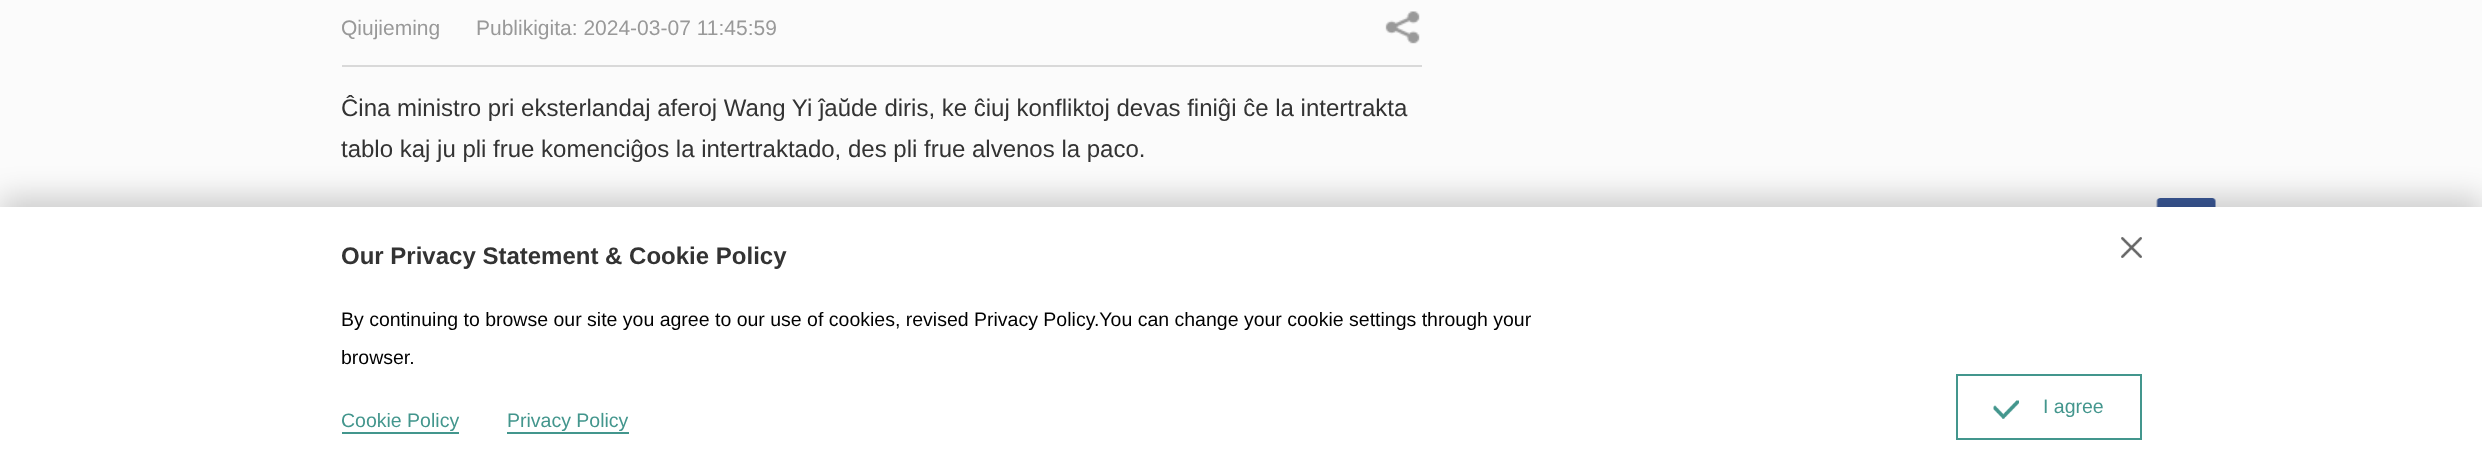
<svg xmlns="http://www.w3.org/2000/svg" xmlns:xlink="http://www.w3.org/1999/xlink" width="2482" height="469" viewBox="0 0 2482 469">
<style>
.cls-1{font:21px Liberation Sans;fill:#999999}
.cls-2{font:24px Liberation Sans;fill:#333333}
.cls-3{font:bold 24px Liberation Sans;fill:#333333}
.cls-4{font:19.5px Liberation Sans;fill:#000000}
.cls-5{font:19.5px Liberation Sans;fill:#43968d}
</style>
<rect width="100%" height="100%" fill="#fbfbfb"/>
<rect fill="#d9d9d9" x="342" y="65" width="1080" height="2"/>
<image xlink:href="image0.png" x="1385" y="11" width="35" height="33"/>
<image xlink:href="image1.png" x="2156" y="198" width="60" height="9"/>
<rect fill="#000000" fill-opacity="0.19" filter="blur(15px)" x="0" y="197" width="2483" height="262"/>
<rect fill="#ffffff" x="0" y="207" width="2482" height="262"/>
<image xlink:href="image2.png" x="2121" y="237" width="21" height="21"/>
<rect fill="none" stroke="#43968d" stroke-width="2" x="1957" y="375" width="184" height="64"/>
<image xlink:href="image3.png" x="1993" y="400" width="26" height="19"/>
<rect fill="#43968d" x="342" y="432" width="117" height="2"/>
<rect fill="#43968d" x="507" y="432" width="122" height="2"/>
<text class="cls-1" x="341" y="35">Qiujieming</text>
<text class="cls-1" x="476" y="35">Publikigita: 2024-03-07 11:45:59</text>
<text class="cls-2"><tspan x="341" y="116">Ĉina ministro pri eksterlandaj aferoj Wang Yi ĵaŭde diris, ke ĉiuj konfliktoj devas finiĝi ĉe la intertrakta</tspan><tspan x="341" y="157">tablo kaj ju pli frue komenciĝos la intertraktado, des pli frue alvenos la paco.</tspan></text>
<text class="cls-3" x="341" y="264">Our Privacy Statement &amp; Cookie Policy</text>
<text class="cls-4"><tspan x="341" y="326">By continuing to browse our site you agree to our use of cookies, revised Privacy Policy.You can change your cookie settings through your</tspan><tspan x="341" y="364">browser.</tspan></text>
<text class="cls-5" x="2043" y="413">I agree</text>
<text class="cls-5" x="341" y="427">Cookie Policy</text>
<text class="cls-5" x="507" y="427">Privacy Policy</text>
</svg>
